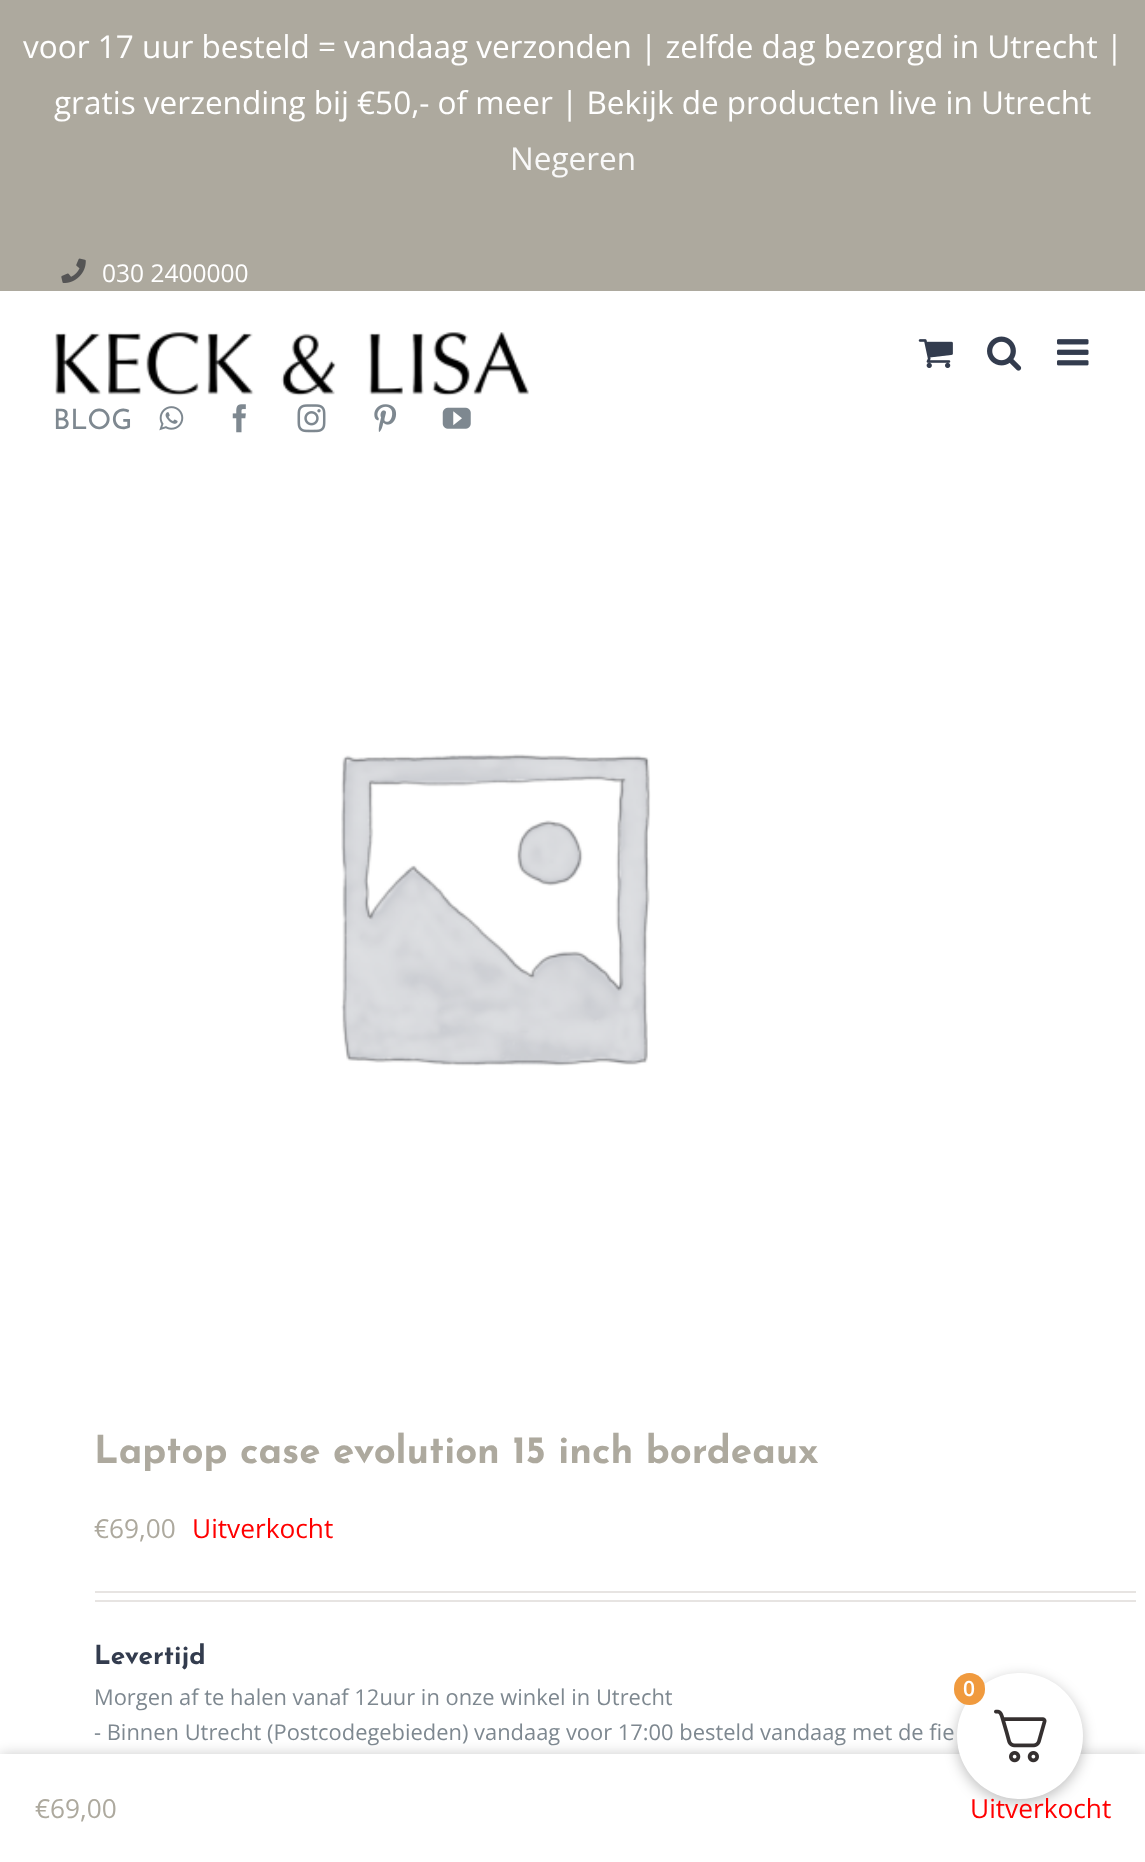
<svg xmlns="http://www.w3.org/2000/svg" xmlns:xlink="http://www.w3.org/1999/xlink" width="1145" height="1862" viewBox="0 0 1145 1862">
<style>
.cls-1{font:31.5px Open Sans;fill:#ffffff}
.cls-2{font:31.5px Open Sans;fill:#f9f9f9}
.cls-3{font:24.5px Open Sans;fill:#ffffff}
.cls-4{font:28px Josefin Sans;fill:#7e8890}
.cls-5{font:bold 38.5px Josefin Sans;fill:#ada99e}
.cls-6{font:26.25px Open Sans;fill:#ada99e}
.cls-7{font:26.25px Open Sans;fill:#ff0000}
.cls-8{font:bold 26.25px Josefin Sans;fill:#333c4e}
.cls-9{font:21.9px Open Sans;fill:#7e8890}
.cls-10{font:600 21px Open Sans;fill:#ffffff}
</style>
<rect width="100%" height="100%" fill="#ffffff"/>
<rect fill="#ada99e" x="0" y="0" width="1145" height="291"/>
<image xlink:href="image0.png" x="61" y="258" width="25" height="25"/>
<image xlink:href="image1.png" x="918" y="339" width="35" height="29"/>
<image xlink:href="image2.png" x="987" y="336" width="35" height="35"/>
<image xlink:href="image3.png" x="1057" y="339" width="32" height="27"/>
<image xlink:href="image4.png" x="55" y="332" width="474" height="64"/>
<image xlink:href="image5.png" x="159" y="406" width="25" height="25"/>
<image xlink:href="image6.png" x="232" y="404" width="14" height="29"/>
<image xlink:href="image7.png" x="297" y="404" width="29" height="29"/>
<image xlink:href="image8.png" x="374" y="404" width="23" height="28"/>
<image xlink:href="image9.png" x="442" y="407" width="29" height="22"/>
<image xlink:href="image10.png" x="341" y="754" width="310" height="312"/>
<rect fill="#e7e4e2" x="95" y="1591" width="1041" height="2"/>
<rect fill="#e7e4e2" x="95" y="1600" width="1041" height="2"/>
<rect fill="#000000" fill-opacity="0.2" filter="blur(7px)" x="0" y="1754" width="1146" height="108"/>
<rect fill="#ffffff" x="0" y="1754" width="1145" height="108"/>
<rect fill="#000000" fill-opacity="0.25" filter="blur(7px)" x="957" y="1677" width="126" height="126" rx="63"/>
<text class="cls-1" x="23" y="58">voor 17 uur besteld = vandaag verzonden | zelfde dag bezorgd in Utrecht |</text>
<text class="cls-1" x="54" y="114">gratis verzending bij €50,- of meer | Bekijk de producten live in Utrecht</text>
<text class="cls-2" x="510" y="170">Negeren</text>
<text class="cls-3" x="102" y="282">030 2400000</text>
<text class="cls-4" x="53" y="429">BLOG</text>
<text class="cls-5" x="94" y="1463">Laptop case evolution 15 inch bordeaux</text>
<text class="cls-6" x="94" y="1538">€69,00</text>
<text class="cls-7" x="192" y="1538">Uitverkocht</text>
<text class="cls-8" x="94" y="1664">Levertijd</text>
<text class="cls-9"><tspan x="94" y="1705">Morgen af te halen vanaf 12uur in onze winkel in Utrecht</tspan><tspan x="94" y="1740">- Binnen Utrecht (Postcodegebieden) vandaag voor 17:00 besteld vandaag met de fie</tspan></text>
<text class="cls-6" x="35" y="1818">€69,00</text>
<text class="cls-7" x="970" y="1818">Uitverkocht</text>
<circle fill="#ffffff" cx="1020" cy="1736" r="63"/>
<image xlink:href="image11.png" x="994" y="1709" width="53" height="54"/>
<rect fill="#f09a3e" x="954" y="1673" width="31" height="32" rx="15.5"/>
<text class="cls-10" x="963" y="1696">0</text>
</svg>
